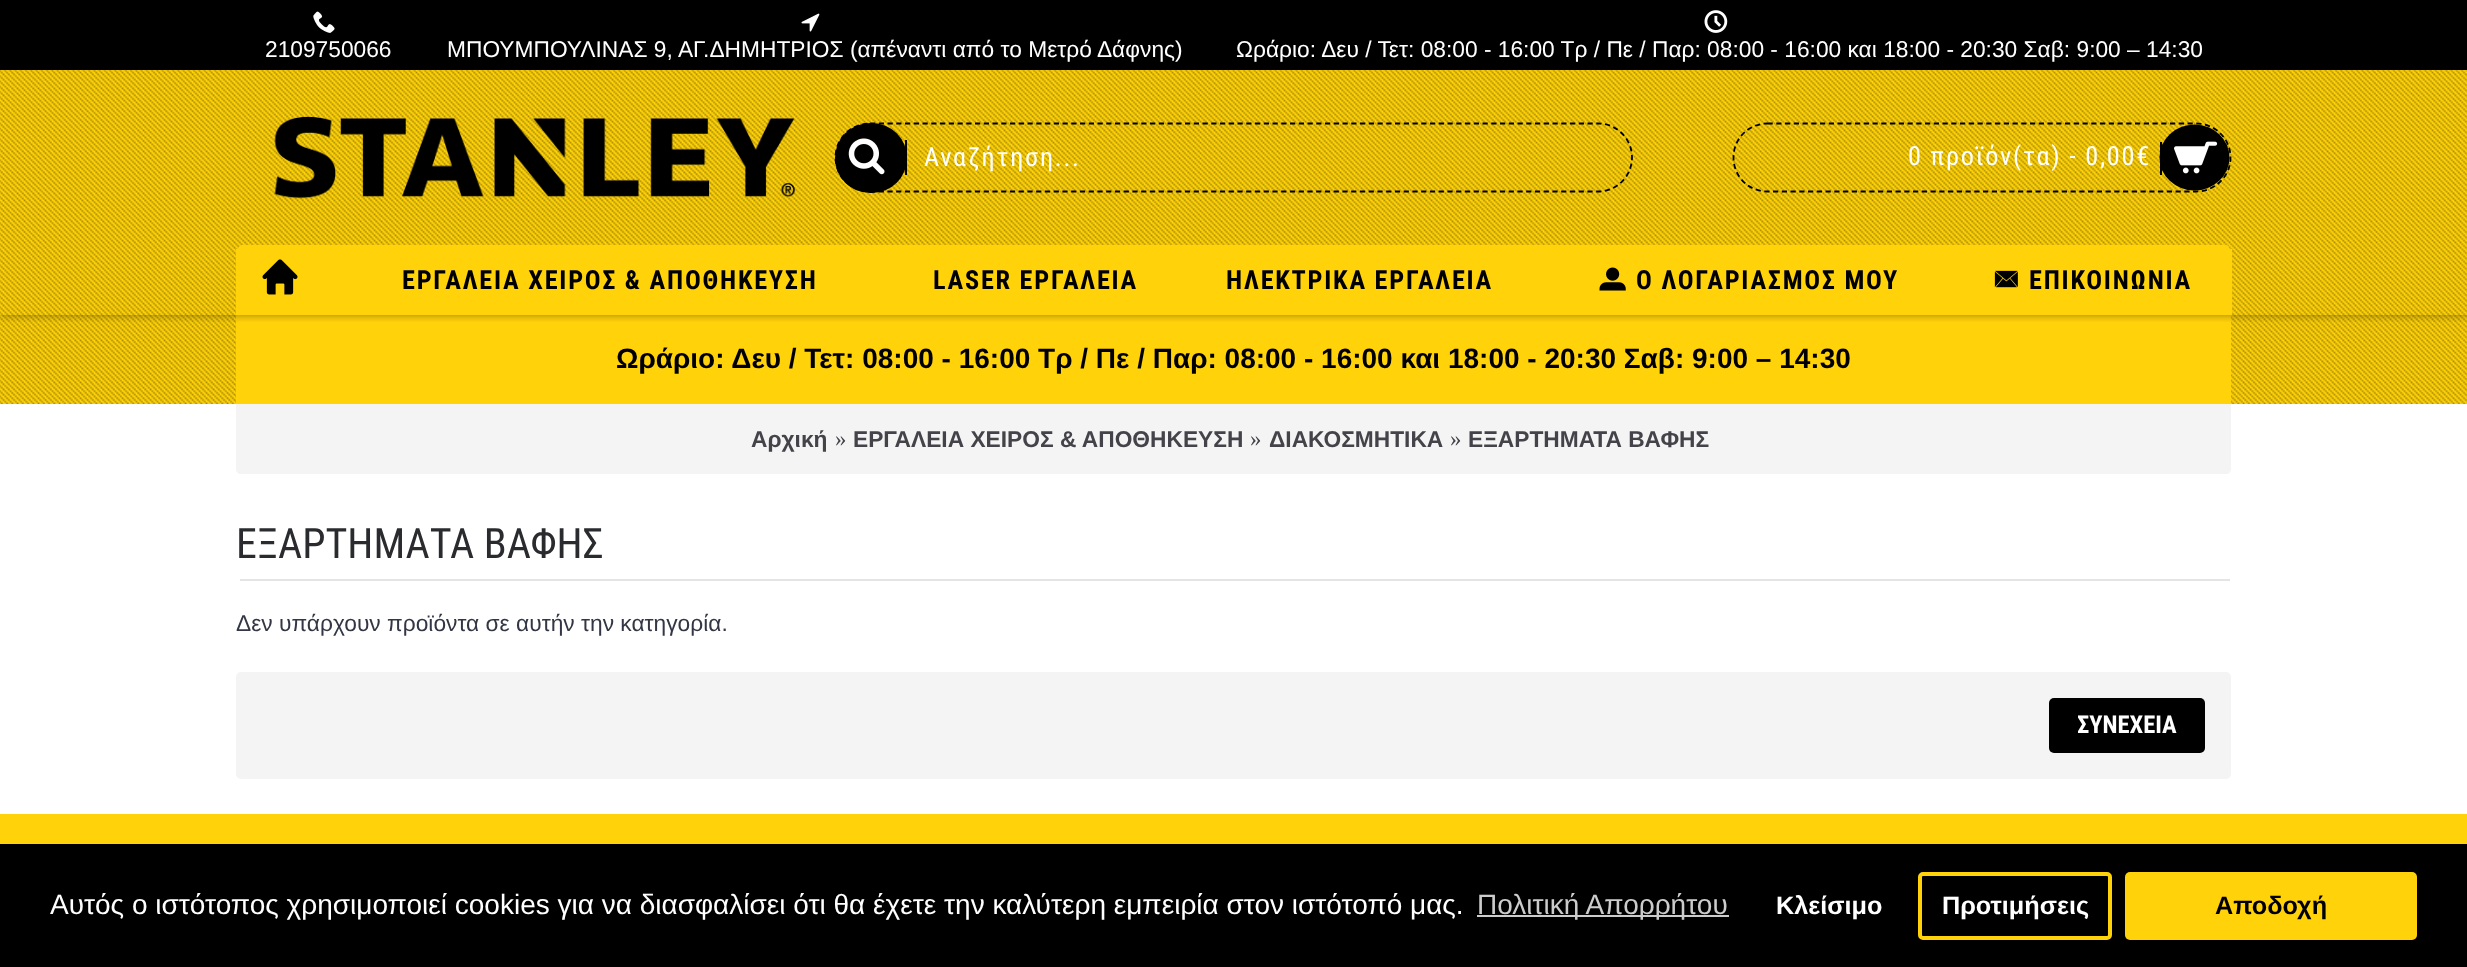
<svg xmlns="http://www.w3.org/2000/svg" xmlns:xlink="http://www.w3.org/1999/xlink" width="2467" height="967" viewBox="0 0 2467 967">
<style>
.cls-1{font:22.75px Liberation Sans;fill:#ffffff}
.cls-2{font:26.25px Roboto Condensed;letter-spacing:1.75px;fill:#ffffff}
.cls-3{font:bold 26.25px Roboto Condensed;letter-spacing:1.75px;fill:#000000}
.cls-4{font:bold 28px Liberation Sans;fill:#000000}
.cls-5{font:bold 22.75px Liberation Sans;fill:#444349}
.cls-6{font:22.75px Liberation Serif;fill:#444349}
.cls-7{font:42px Roboto Condensed;fill:#2a2b2e}
.cls-8{font:22.75px Liberation Sans;fill:#333745}
.cls-9{font:bold 24.5px Roboto Condensed;fill:#ffffff}
.cls-10{font:28px Liberation Sans;fill:#ffffff}
.cls-11{font:28px Liberation Sans;fill:#cccccc}
.cls-12{font:bold 25.25px Liberation Sans;fill:#ffffff}
.cls-13{font:bold 25.25px Liberation Sans;fill:#000000}
</style>
<defs>
<clipPath id="clip1"><rect x="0" y="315" width="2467" height="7"/></clipPath>
</defs>
<rect width="100%" height="100%" fill="#ffffff"/>
<image xlink:href="image0.png" x="0" y="70" width="2467" height="334"/>
<rect fill="#ffd20a" x="236" y="315" width="1995" height="89"/>
<g clip-path="url(#clip1)">
<rect fill="#000000" fill-opacity="0.4" filter="blur(4.5px)" x="0" y="0" width="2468" height="315"/>
</g>
<rect fill="#000000" x="0" y="0" width="2467" height="70"/>
<image xlink:href="image1.png" x="313" y="11" width="22" height="22"/>
<image xlink:href="image2.png" x="801" y="13" width="19" height="19"/>
<image xlink:href="image3.png" x="1704" y="10" width="24" height="23"/>
<image xlink:href="image4.png" x="274" y="116" width="521" height="83"/>
<path fill="none" stroke="#000000" stroke-width="1.8" stroke-dasharray="5.25 3.5" d="M870 123.5H1598C1616.5 123.5 1632 138.5 1632 157.5C1632 176.5 1616.5 191.5 1598 191.5H870C851 191.5 835.5 176.5 835.5 157.5C835.5 138.5 851 123.5 870 123.5Z"/>
<rect fill="#000000" x="835" y="123" width="72" height="70" rx="35"/>
<rect fill="#000000" x="905" y="140" width="2" height="35"/>
<image xlink:href="image5.png" x="848" y="138" width="37" height="37"/>
<path fill="none" stroke="#000000" stroke-width="1.8" stroke-dasharray="5.25 3.5" d="M1767.5 123.5H2196C2215 123.5 2230.5 138.5 2230.5 157.5C2230.5 176.5 2215 191.5 2196 191.5H1767.5C1748.5 191.5 1733.5 176.5 1733.5 157.5C1733.5 138.5 1748.5 123.5 1767.5 123.5Z"/>
<ellipse fill="#000000" cx="2194.5" cy="157.5" rx="35" ry="33"/>
<rect fill="#000000" x="2160" y="142" width="2" height="33"/>
<image xlink:href="image6.png" x="2174" y="141" width="44" height="33"/>
<path fill="#ffd20a" d="M242 245H324V315H238V250C238 247 240 245 242 245Z"/>
<rect fill="#ffd20a" x="236" y="249" width="2" height="66"/>
<image xlink:href="image7.png" x="262" y="259" width="36" height="36"/>
<rect fill="#ffd20a" x="324" y="245" width="569" height="70"/>
<rect fill="#ffd20a" x="893" y="245" width="283" height="70"/>
<rect fill="#ffd20a" x="1176" y="245" width="366" height="70"/>
<rect fill="#ffd20a" x="1542" y="245" width="413" height="70"/>
<image xlink:href="image8.png" x="1599" y="267" width="27" height="24"/>
<path fill="#ffd20a" d="M1955 245H2226C2228 245 2230 247 2230 250V315H1955Z"/>
<rect fill="#ffd20a" x="2230" y="249" width="2" height="66"/>
<image xlink:href="image9.png" x="1994" y="270" width="24" height="18"/>
<path fill="#f4f4f4" d="M236 404H2231V469C2231 472 2229 474 2226 474H241C238 474 236 472 236 469Z"/>
<rect fill="#e4e4e4" x="240" y="579" width="1990" height="2"/>
<rect fill="#f4f4f4" x="236" y="672" width="1995" height="107" rx="5"/>
<rect fill="#000000" x="2049" y="698" width="156" height="55" rx="5"/>
<rect fill="#ffd20a" x="0" y="814" width="2467" height="30"/>
<rect fill="#000000" x="0" y="844" width="2467" height="123"/>
<rect fill="#cccccc" x="1477" y="915" width="252" height="2"/>
<rect fill="none" stroke="#ffd20a" stroke-width="4" x="1920" y="874" width="190" height="64" rx="3"/>
<rect fill="#ffd20a" x="2125" y="872" width="292" height="68" rx="5"/>
<text class="cls-1" x="265" y="57">2109750066</text>
<text class="cls-1" x="447" y="57">ΜΠΟΥΜΠΟΥΛΙΝΑΣ 9, ΑΓ.ΔΗΜΗΤΡΙΟΣ (απέναντι από το Μετρό Δάφνης)</text>
<text class="cls-1" x="1236" y="57">Ωράριο: Δευ / Τετ: 08:00 - 16:00 Τρ / Πε / Παρ: 08:00 - 16:00 και 18:00 - 20:30 Σαβ: 9:00 – 14:30</text>
<text class="cls-2" x="924" y="166">Αναζήτηση...</text>
<text class="cls-2" x="1908" y="165">0 προϊόν(τα) - 0,00€</text>
<text class="cls-3" x="402" y="289">ΕΡΓΑΛΕΙΑ ΧΕΙΡΟΣ &amp; ΑΠΟΘΗΚΕΥΣΗ</text>
<text class="cls-3" x="933" y="289">LASER ΕΡΓΑΛΕΙΑ</text>
<text class="cls-3" x="1226" y="289">ΗΛΕΚΤΡΙΚΑ ΕΡΓΑΛΕΙΑ</text>
<text class="cls-3" x="1636" y="289">O ΛΟΓΑΡΙΑΣΜΟΣ ΜΟΥ</text>
<text class="cls-3" x="2029" y="289">ΕΠΙΚΟΙΝΩΝΙΑ</text>
<text class="cls-4" x="616" y="368">Ωράριο: Δευ / Τετ: 08:00 - 16:00 Τρ / Πε / Παρ: 08:00 - 16:00 και 18:00 - 20:30 Σαβ: 9:00 – 14:30</text>
<text class="cls-5" x="751" y="447">Αρχική</text>
<text class="cls-6" x="835" y="446">»</text>
<text class="cls-5" x="853" y="447">ΕΡΓΑΛΕΙΑ ΧΕΙΡΟΣ &amp; ΑΠΟΘΗΚΕΥΣΗ</text>
<text class="cls-6" x="1250" y="446">»</text>
<text class="cls-5" x="1269" y="447">ΔΙΑΚΟΣΜΗΤΙΚΑ</text>
<text class="cls-6" x="1450" y="446">»</text>
<text class="cls-5" x="1468" y="447">ΕΞΑΡΤΗΜΑΤΑ ΒΑΦΗΣ</text>
<text class="cls-7" x="236" y="558">ΕΞΑΡΤΗΜΑΤΑ ΒΑΦΗΣ</text>
<text class="cls-8" x="236" y="631">Δεν υπάρχουν προϊόντα σε αυτήν την κατηγορία.</text>
<text class="cls-9" x="2077" y="733">ΣΥΝΕΧΕΙΑ</text>
<text class="cls-10" x="50" y="914">Αυτός ο ιστότοπος χρησιμοποιεί cookies για να διασφαλίσει ότι θα έχετε την καλύτερη εμπειρία στον ιστότοπό μας.</text>
<text class="cls-11" x="1477" y="914">Πολιτική Απορρήτου</text>
<text class="cls-12" x="1776" y="914">Κλείσιμο</text>
<text class="cls-12" x="1942" y="914">Προτιμήσεις</text>
<text class="cls-13" x="2215" y="914">Αποδοχή</text>
</svg>
